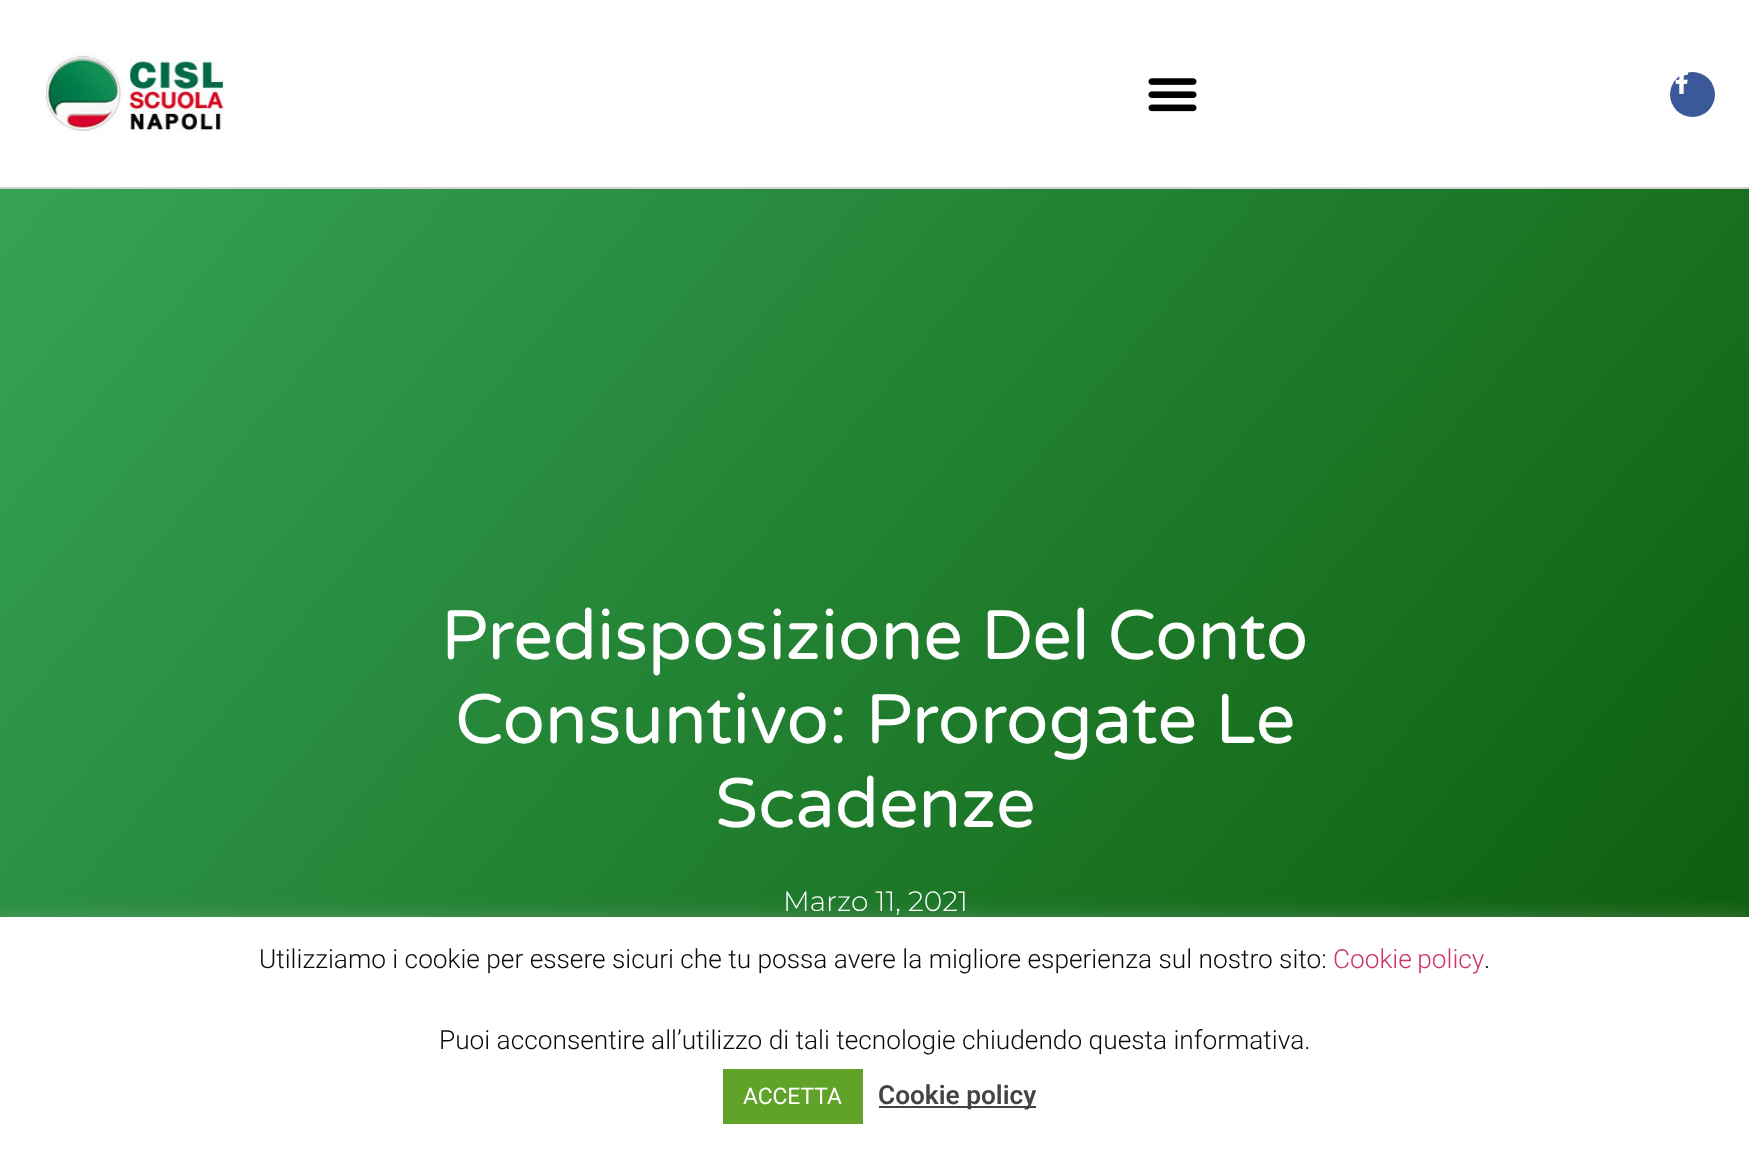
<svg xmlns="http://www.w3.org/2000/svg" xmlns:xlink="http://www.w3.org/1999/xlink" width="1749" height="1152" viewBox="0 0 1749 1152">
<style>
.cls-1{font:70px Varela Round;fill:#ffffff}
.cls-2{font:300 28px Montserrat;fill:#ffffff}
.cls-3{font:300 26.25px Roboto;fill:#0a0a0a}
.cls-4{font:300 26.25px Roboto;fill:#cc3366}
.cls-5{font:22.75px Roboto;fill:#ffffff}
.cls-6{font:600 26.25px Roboto;fill:#444444}
</style>
<defs>
<linearGradient id="g1" gradientUnits="userSpaceOnUse" x1="81" y1="92" x2="1669" y2="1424"><stop offset="0" stop-color="#36a256"/><stop offset="0.89" stop-color="#0d5e0c"/></linearGradient>
</defs>
<rect width="100%" height="100%" fill="#ffffff"/>
<rect fill="#d3d3d3" x="0" y="187" width="1749" height="2"/>
<image xlink:href="image0.png" x="43" y="52" width="183" height="81"/>
<image xlink:href="image1.png" x="1148" y="78" width="49" height="34"/>
<circle fill="#3b5998" cx="1692.5" cy="94.5" r="22.5"/>
<image xlink:href="image2.png" x="1675" y="72" width="13" height="22"/>
<rect fill="url(#g1)" x="0" y="189" width="1749" height="728"/>
<rect fill="#acabab" fill-opacity="0.3" filter="blur(9px)" x="0" y="915" width="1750" height="237"/>
<rect fill="#ffffff" x="0" y="917" width="1749" height="235"/>
<rect fill="#61a229" x="723" y="1069" width="140" height="55"/>
<rect fill="#444444" x="879" y="1106" width="157" height="2"/>
<text class="cls-1" x="441" y="659">Predisposizione Del Conto</text>
<text class="cls-1" x="455" y="743">Consuntivo: Prorogate Le</text>
<text class="cls-1" x="715" y="827">Scadenze</text>
<text class="cls-2" x="783" y="911">Marzo 11, 2021</text>
<text class="cls-3" x="259" y="968">Utilizziamo i cookie per essere sicuri che tu possa avere la migliore esperienza sul nostro sito:</text>
<text class="cls-4" x="1333" y="968" word-spacing="-1">Cookie policy</text>
<text class="cls-3" x="1484" y="968">.</text>
<text class="cls-3" x="439" y="1049">Puoi acconsentire all’utilizzo di tali tecnologie chiudendo questa informativa.</text>
<text class="cls-5" x="743" y="1104">ACCETTA</text>
<text class="cls-6" x="878" y="1104">Cookie policy</text>
</svg>
